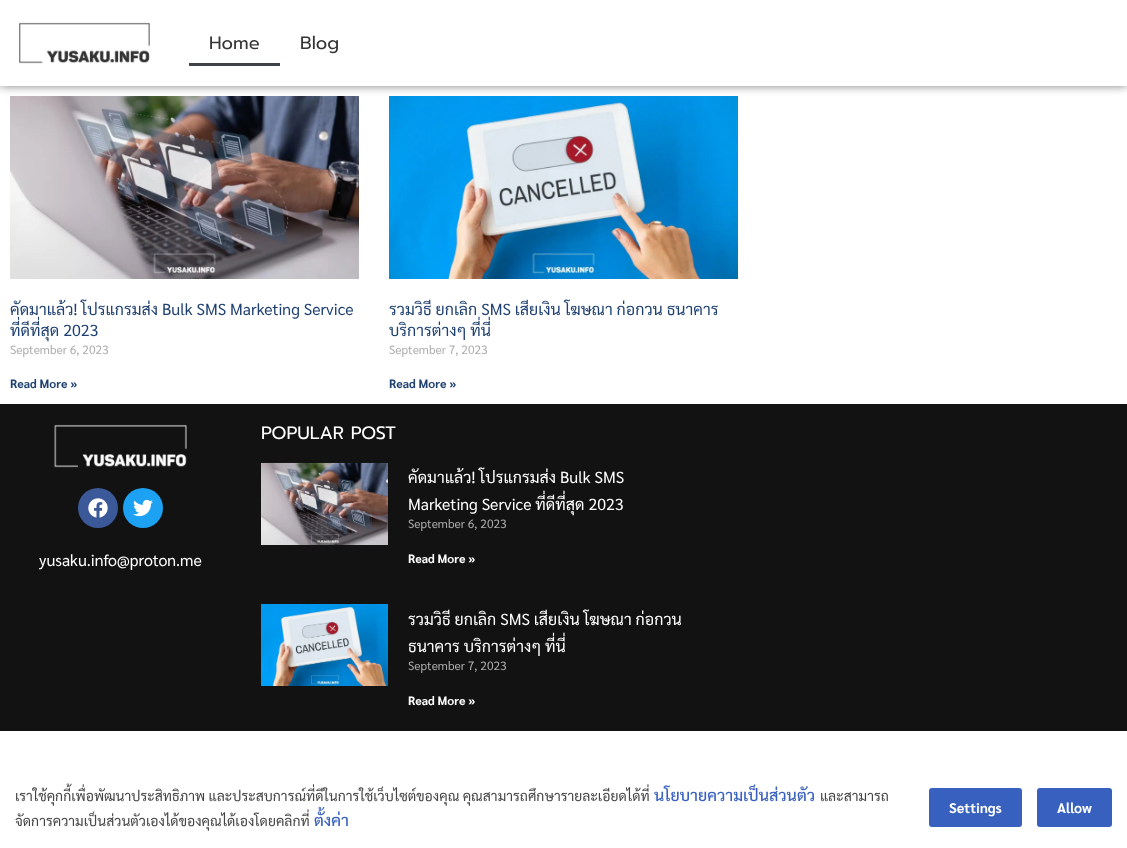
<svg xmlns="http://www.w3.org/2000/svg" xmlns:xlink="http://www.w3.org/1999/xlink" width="1127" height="848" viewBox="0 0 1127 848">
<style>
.cls-1{font:18px Prompt;fill:#363636}
.cls-2{font:16px Sarabun;fill:#1f4171}
.cls-3{font:12px Sarabun;fill:#adadad}
.cls-4{font:bold 12px Sarabun;fill:#1f4171}
.cls-5{font:16px Sarabun;fill:#ffffff}
.cls-6{font:18px Prompt;fill:#ffffff}
.cls-7{font:bold 12px Sarabun;fill:#ffffff}
.cls-8{font:14px Sarabun;fill:#444444}
.cls-9{font:500 16px Sarabun;fill:#3860be}
.cls-10{font:bold 14px Sarabun;fill:#ffffff}
</style>
<defs>
<clipPath id="clip1"><rect x="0" y="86" width="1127" height="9"/></clipPath>
<clipPath id="clip2"><rect x="10" y="96" width="349" height="298"/></clipPath>
</defs>
<rect width="100%" height="100%" fill="#ffffff"/>
<g clip-path="url(#clip1)">
<rect fill="#000000" fill-opacity="0.5" filter="blur(5px)" x="0" y="0" width="1127" height="86"/>
</g>
<image xlink:href="image0.png" x="19" y="22" width="131" height="42"/>
<rect fill="#3f444b" x="189" y="63" width="91" height="3"/>
<image xlink:href="image1.png" x="10" y="96" width="349" height="183"/>
<image xlink:href="image2.png" x="389" y="96" width="349" height="183"/>
<rect fill="#121212" x="0" y="404" width="1127" height="327"/>
<image xlink:href="image3.png" x="54" y="424" width="133" height="44"/>
<circle fill="#3b5998" cx="98" cy="508" r="20"/>
<image xlink:href="image4.png" x="88" y="498" width="20" height="20"/>
<circle fill="#1da1f2" cx="143" cy="508" r="20"/>
<image xlink:href="image5.png" x="133" y="499" width="20" height="18"/>
<image xlink:href="image6.png" x="261" y="462" width="127" height="83"/>
<image xlink:href="image7.png" x="261" y="604" width="127" height="82"/>
<rect fill="#3860be" x="929" y="788" width="93" height="39" rx="3"/>
<rect fill="#3860be" x="1037" y="788" width="75" height="39" rx="3"/>
<text class="cls-1" x="209" y="49">Home</text>
<text class="cls-1" x="300" y="49">Blog</text>
<g clip-path="url(#clip2)">
<text class="cls-2"><tspan x="10" y="315">คัดมาแล้ว! โปรแกรมส่ง Bulk SMS Marketing Service</tspan><tspan x="10" y="336">ที่ดีที่สุด 2023</tspan></text>
</g>
<text class="cls-3" x="10" y="354">September 6, 2023</text>
<text class="cls-4" x="10" y="388">Read More »</text>
<text class="cls-2"><tspan x="389" y="315">รวมวิธี ยกเลิก SMS เสียเงิน โฆษณา ก่อกวน ธนาคาร</tspan><tspan x="389" y="336">บริการต่างๆ ที่นี่</tspan></text>
<text class="cls-3" x="389" y="354">September 7, 2023</text>
<text class="cls-4" x="389" y="388">Read More »</text>
<text class="cls-5" x="39" y="566">yusaku.info@proton.me</text>
<text class="cls-6" x="261" y="439">POPULAR POST</text>
<text class="cls-5"><tspan x="408" y="483">คัดมาแล้ว! โปรแกรมส่ง Bulk SMS</tspan><tspan x="408" y="510">Marketing Service ที่ดีที่สุด 2023</tspan></text>
<text class="cls-3" x="408" y="528">September 6, 2023</text>
<text class="cls-7" x="408" y="563">Read More »</text>
<text class="cls-5"><tspan x="408" y="625">รวมวิธี ยกเลิก SMS เสียเงิน โฆษณา ก่อกวน</tspan><tspan x="408" y="652">ธนาคาร บริการต่างๆ ที่นี่</tspan></text>
<text class="cls-3" x="408" y="670">September 7, 2023</text>
<text class="cls-7" x="408" y="705">Read More »</text>
<text class="cls-8" x="15" y="801">เราใช้คุกกี้เพื่อพัฒนาประสิทธิภาพ และประสบการณ์ที่ดีในการใช้เว็บไซต์ของคุณ คุณสามารถศึกษารายละเอียดได้ที่</text>
<text class="cls-9" x="654" y="801">นโยบายความเป็นส่วนตัว</text>
<text class="cls-8" x="820" y="801">และสามารถ</text>
<text class="cls-8" x="15" y="826">จัดการความเป็นส่วนตัวเองได้ของคุณได้เองโดยคลิกที่</text>
<text class="cls-9" x="314" y="826">ตั้งค่า</text>
<text class="cls-10" x="949" y="813">Settings</text>
<text class="cls-10" x="1057" y="813">Allow</text>
</svg>
